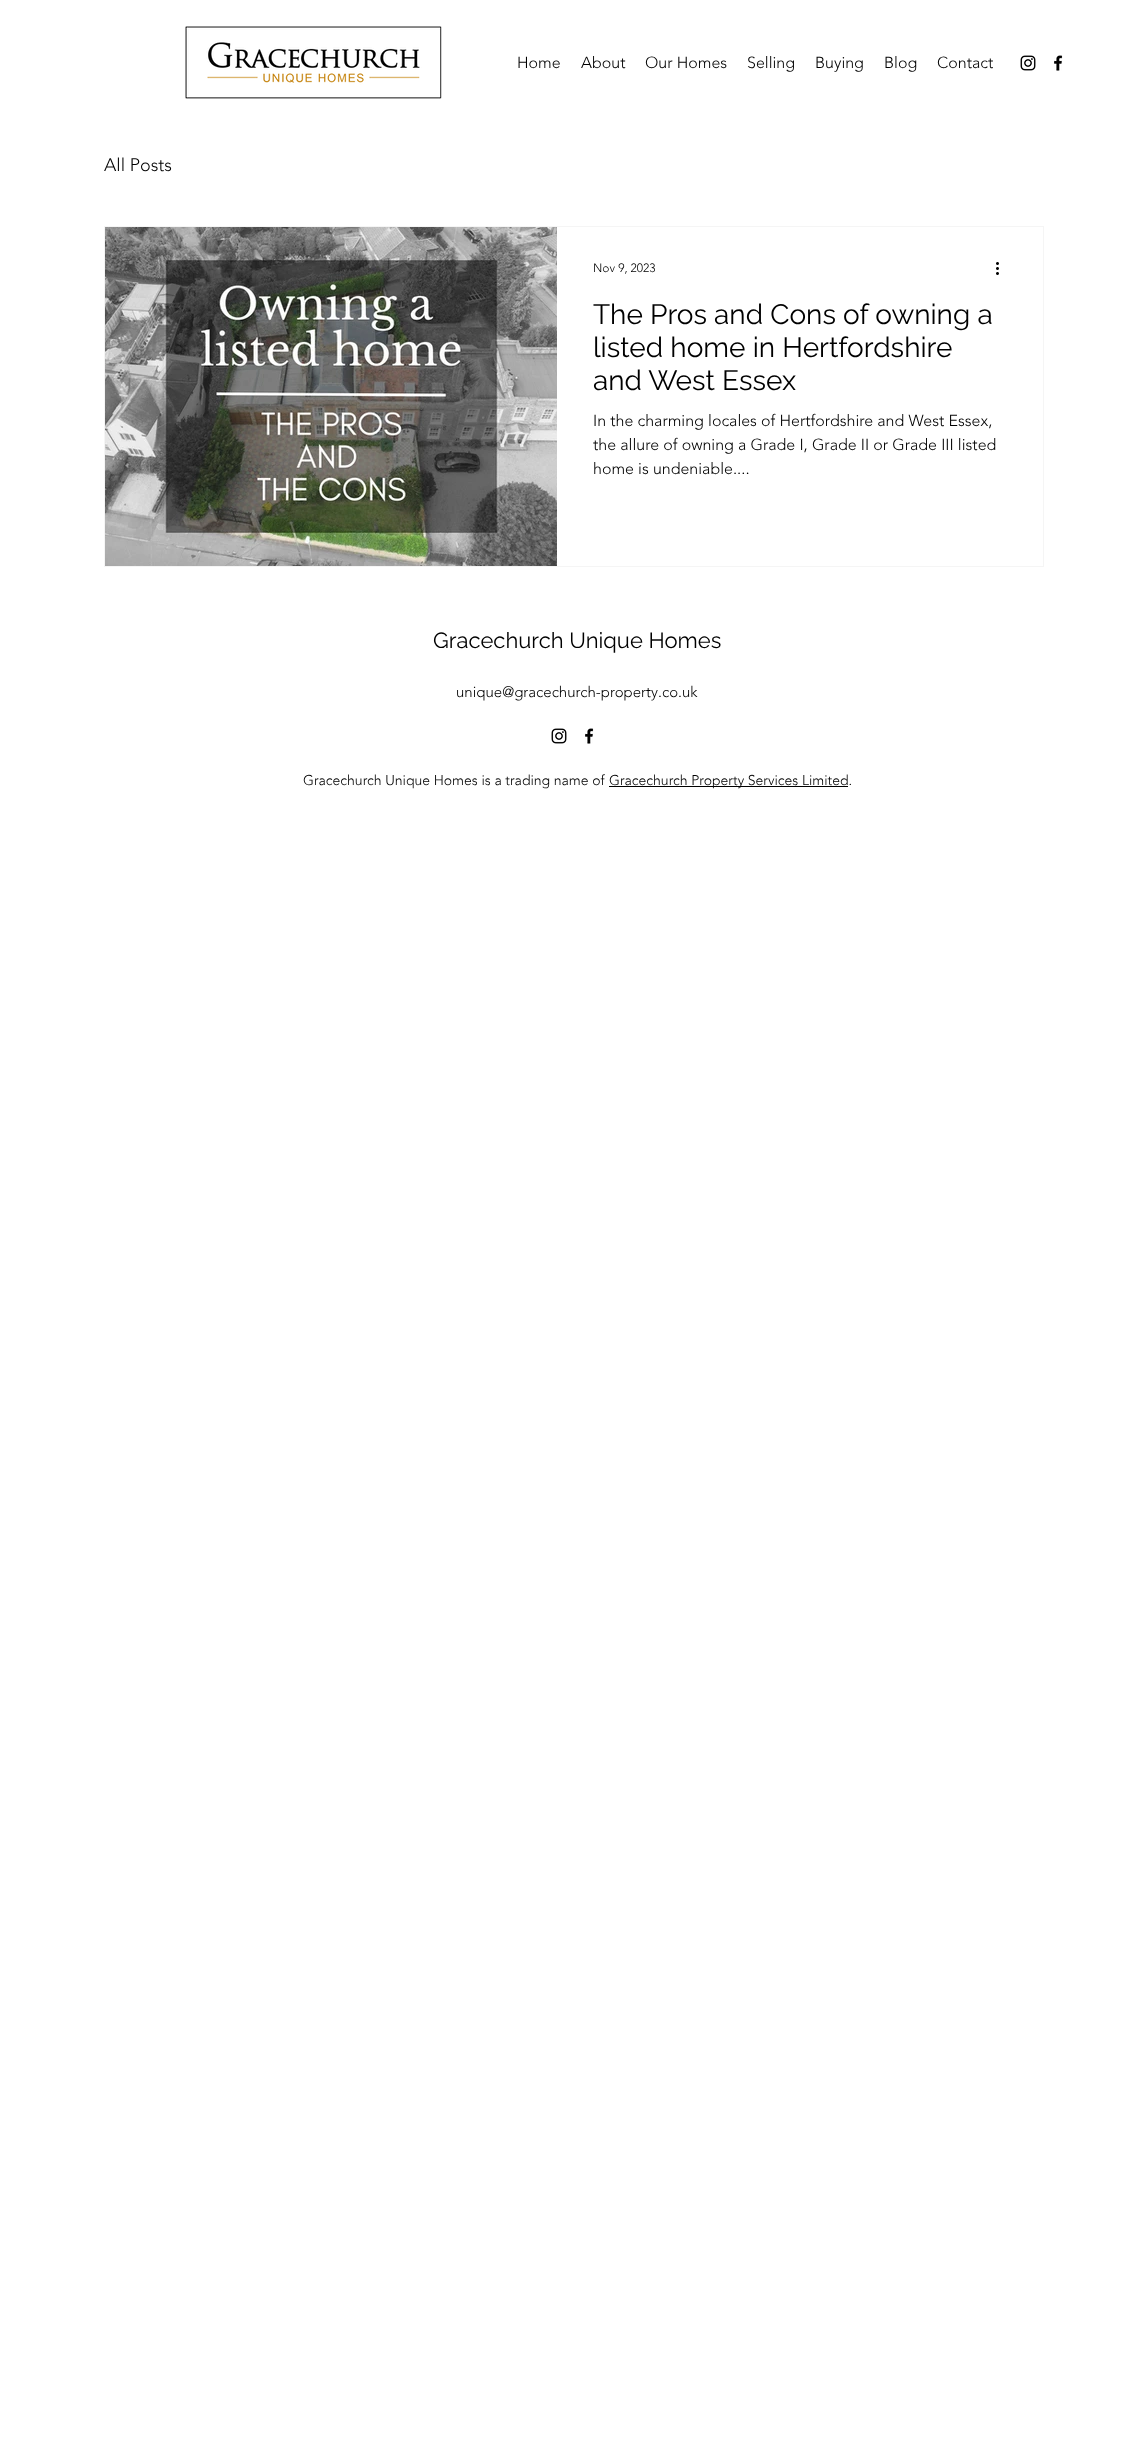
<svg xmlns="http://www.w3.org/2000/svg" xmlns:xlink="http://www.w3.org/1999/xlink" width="1148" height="2455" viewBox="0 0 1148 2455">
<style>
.cls-1{font:300 16px 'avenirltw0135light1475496';fill:#000000}
.cls-2{font:300 18px 'avenirltw0135light1475496';fill:#000000}
.cls-3{font:300 12px 'avenirltw0135light1475496';fill:#000000}
.cls-4{font:28px Raleway;fill:#000000}
.cls-5{font:22px Raleway;fill:#000000}
.cls-6{font:300 15px 'avenirltw0135light1475496';fill:#000000}
.cls-7{font:300 14px 'avenirltw0135light1475496';fill:#000000}
</style>
<rect width="100%" height="100%" fill="#ffffff"/>
<image xlink:href="image0.png" x="185" y="26" width="257" height="73"/>
<image xlink:href="image1.png" x="1020" y="55" width="16" height="16"/>
<image xlink:href="image2.png" x="1054" y="55" width="9" height="16"/>
<rect fill="none" stroke="#f5f5f5" x="104.5" y="226.5" width="939" height="340"/>
<image xlink:href="image3.png" x="105" y="227" width="452" height="339"/>
<image xlink:href="image4.png" x="996" y="262" width="3" height="13"/>
<image xlink:href="image1.png" x="551" y="728" width="16" height="16"/>
<image xlink:href="image2.png" x="585" y="728" width="9" height="16"/>
<rect fill="#000000" x="609" y="786" width="239" height="1"/>
<text class="cls-1" x="517" y="68">Home</text>
<text class="cls-1" x="581" y="68">About</text>
<text class="cls-1" x="645" y="68">Our Homes</text>
<text class="cls-1" x="747" y="68">Selling</text>
<text class="cls-1" x="815" y="68">Buying</text>
<text class="cls-1" x="884" y="68">Blog</text>
<text class="cls-1" x="937" y="68">Contact</text>
<text class="cls-2" x="104" y="171">All Posts</text>
<text class="cls-3" x="593" y="272">Nov 9, 2023</text>
<text class="cls-4"><tspan x="593" y="324">The Pros and Cons of owning a</tspan><tspan x="593" y="357">listed home in Hertfordshire</tspan><tspan x="593" y="390">and West Essex</tspan></text>
<text class="cls-1"><tspan x="593" y="426">In the charming locales of Hertfordshire and West Essex,</tspan><tspan x="593" y="450">the allure of owning a Grade I, Grade II or Grade III listed</tspan><tspan x="593" y="474">home is undeniable....</tspan></text>
<text class="cls-5" x="433" y="648">Gracechurch Unique Homes</text>
<text class="cls-6" x="456" y="697">unique@gracechurch-property.co.uk</text>
<text class="cls-7" x="303" y="785">Gracechurch Unique Homes is a trading name of</text>
<text class="cls-7" x="609" y="785">Gracechurch Property Services Limited.</text>
</svg>
